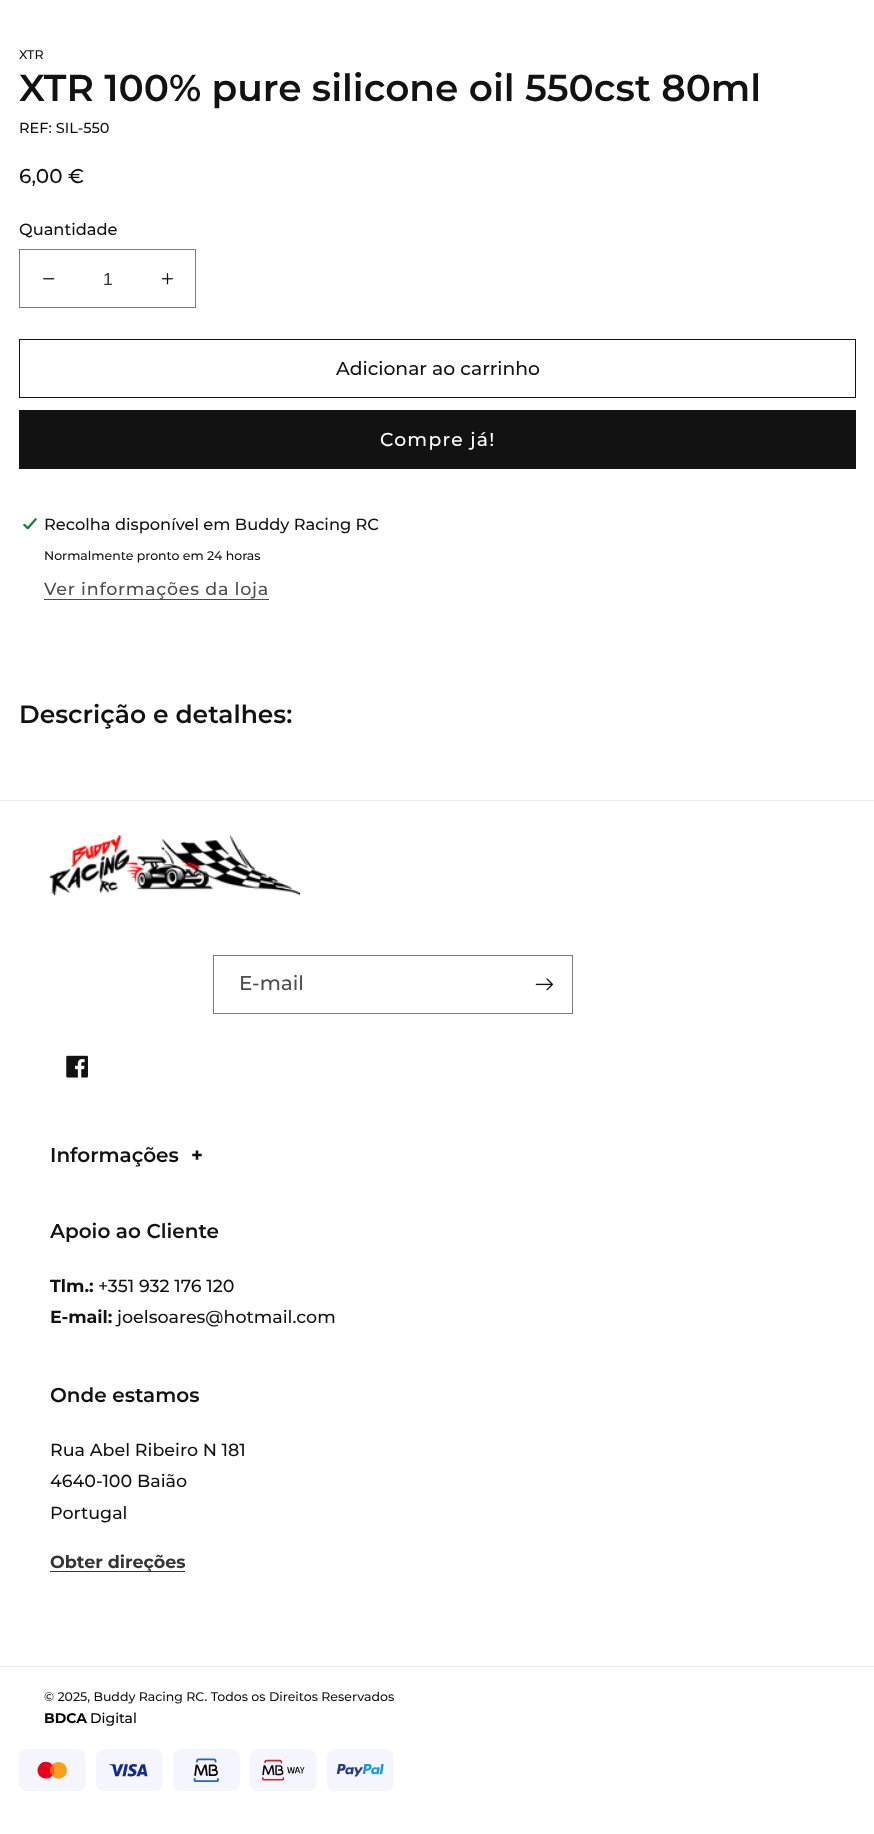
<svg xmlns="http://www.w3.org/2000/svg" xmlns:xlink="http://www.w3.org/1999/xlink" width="874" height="1834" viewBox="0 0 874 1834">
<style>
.cls-1{font:500 12.5px Montserrat;fill:#121212}
.cls-2{font:600 37.5px Montserrat;fill:#121212}
.cls-3{font:500 14.5px Montserrat;fill:#121212}
.cls-4{font:500 20px Montserrat;fill:#121212}
.cls-5{font:500 16.25px Montserrat;fill:#121212}
.cls-6{font:17.5px Liberation Sans;fill:#353535}
.cls-7{font:500 18.75px Montserrat;fill:#121212}
.cls-8{font:500 18.75px Montserrat;letter-spacing:1.25px;fill:#ffffff}
.cls-9{font:500 17.5px Montserrat;letter-spacing:0.75px;fill:#4d4d4d}
.cls-10{font:600 25px Montserrat;fill:#121212}
.cls-11{font:500 20px Montserrat;fill:#4d4d4d}
.cls-12{font:600 20px Montserrat;fill:#121212}
.cls-13{font:bold 20px Montserrat;fill:#121212}
.cls-14{font:bold 17.5px Montserrat;fill:#121212}
.cls-15{font:500 17.5px Montserrat;fill:#121212}
.cls-16{font:bold 17.5px Montserrat;fill:#353535}
.cls-17{font:bold 14px Montserrat;fill:#000000}
.cls-18{font:500 14px Montserrat;fill:#000000}
</style>
<rect width="100%" height="100%" fill="#ffffff"/>
<image xlink:href="image0.png" x="43" y="278" width="12" height="2"/>
<image xlink:href="image1.png" x="161" y="273" width="13" height="12"/>
<rect fill="none" stroke="#7d7d7d" x="19.5" y="249.5" width="176" height="58"/>
<rect fill="none" stroke="#121212" x="19.5" y="339.5" width="836" height="58"/>
<rect fill="#121212" x="19" y="410" width="837" height="59"/>
<image xlink:href="image2.png" x="22" y="517" width="16" height="13"/>
<rect fill="#4d4d4d" x="44" y="599" width="225" height="1"/>
<rect fill="#ececec" x="0" y="800" width="874" height="1"/>
<image xlink:href="image3.png" x="50" y="835" width="250" height="61"/>
<rect fill="none" stroke="#7d7d7d" x="213.5" y="955.5" width="359" height="58"/>
<image xlink:href="image4.png" x="535" y="978" width="18" height="13"/>
<image xlink:href="image5.png" x="66" y="1055" width="22" height="23"/>
<rect fill="#363636" x="50" y="1571" width="135" height="1"/>
<rect fill="#ececec" x="0" y="1666" width="874" height="1"/>
<image xlink:href="image6.png" x="19" y="1749" width="375" height="42"/>
<text class="cls-1" x="19" y="59">XTR</text>
<text class="cls-2" x="19" y="101">XTR 100% pure silicone oil 550cst 80ml</text>
<text class="cls-3" x="19" y="133">REF: SIL-550</text>
<text class="cls-4" x="19" y="183">6,00 €</text>
<text class="cls-5" x="19" y="235">Quantidade</text>
<text class="cls-6" x="103" y="285">1</text>
<text class="cls-7" x="336" y="375">Adicionar ao carrinho</text>
<text class="cls-8" x="380" y="446">Compre já!</text>
<text class="cls-5" x="44" y="530">Recolha disponível em Buddy Racing RC</text>
<text class="cls-1" x="44" y="560">Normalmente pronto em 24 horas</text>
<text class="cls-9" x="44" y="595">Ver informações da loja</text>
<text class="cls-10" x="19" y="723">Descrição e detalhes:</text>
<text class="cls-11" x="239" y="990">E-mail</text>
<text class="cls-12" x="50" y="1162">Informações</text>
<text class="cls-13" x="191" y="1162">+</text>
<text class="cls-12" x="50" y="1238">Apoio ao Cliente</text>
<text class="cls-14" x="50" y="1292">Tlm.:</text>
<text class="cls-15" x="98" y="1292">+351 932 176 120</text>
<text class="cls-14" x="50" y="1323">E-mail:</text>
<text class="cls-15" x="117" y="1323">joelsoares@hotmail.com</text>
<text class="cls-12" x="50" y="1402">Onde estamos</text>
<text class="cls-15"><tspan x="50" y="1456">Rua Abel Ribeiro N 181</tspan><tspan x="50" y="1487">4640-100 Baião</tspan><tspan x="50" y="1519">Portugal</tspan></text>
<text class="cls-16" x="50" y="1568">Obter direções</text>
<text class="cls-1" x="44" y="1701">© 2025, Buddy Racing RC. Todos os Direitos Reservados</text>
<text class="cls-17" x="44" y="1723">BDCA</text>
<text class="cls-18" x="90" y="1723">Digital</text>
</svg>
